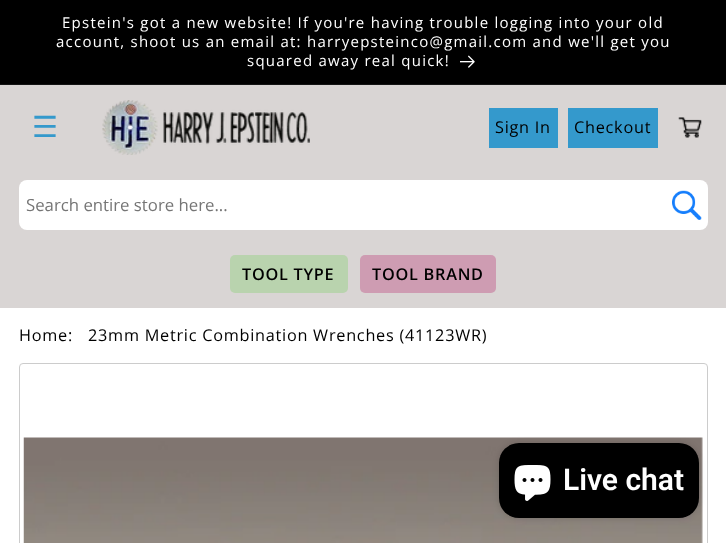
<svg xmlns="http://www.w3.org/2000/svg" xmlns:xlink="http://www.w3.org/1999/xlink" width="726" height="543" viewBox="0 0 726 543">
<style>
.cls-1{font:15px Open Sans;letter-spacing:1.25px;fill:#ffffff}
.cls-2{font:29px DejaVu Sans;fill:#3499cc}
.cls-3{font:16.25px Open Sans;letter-spacing:0.75px;fill:#000000}
.cls-4{font:16.75px Open Sans;fill:#757575}
.cls-5{font:600 16.25px Open Sans;letter-spacing:0.75px;fill:#000000}
.cls-6{font:600 30px Roboto;fill:#ffffff}
</style>
<rect width="100%" height="100%" fill="#ffffff"/>
<rect fill="#000000" x="0" y="0" width="726" height="84"/>
<rect fill="#141414" x="0" y="84" width="726" height="1"/>
<image xlink:href="image0.png" x="460" y="55" width="15" height="13"/>
<rect fill="#d9d5d4" x="0" y="85" width="726" height="223"/>
<image xlink:href="image1.png" x="102" y="100" width="208" height="55"/>
<rect fill="#3499cc" x="489" y="108" width="69" height="40"/>
<rect fill="#3499cc" x="568" y="108" width="90" height="40"/>
<image xlink:href="image2.png" x="678" y="117" width="24" height="21"/>
<rect fill="#ffffff" x="19" y="180" width="689" height="50" rx="8"/>
<image xlink:href="image3.png" x="672" y="190" width="30" height="30"/>
<rect fill="#b9d3ae" x="230" y="255" width="118" height="38" rx="5"/>
<rect fill="#ce9cb2" x="360" y="255" width="136" height="38" rx="5"/>
<rect fill="none" stroke="#cccccc" x="19.5" y="363.5" width="688" height="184" rx="3.5"/>
<image xlink:href="image4.png" x="23" y="437" width="680" height="106"/>
<rect fill="#000000" fill-opacity="0.15" filter="blur(3px)" x="499" y="443" width="200" height="75" rx="20"/>
<rect fill="#000000" x="499" y="443" width="200" height="75" rx="20"/>
<image xlink:href="image5.png" x="514" y="465" width="37" height="36"/>
<text class="cls-1" x="62" y="28">Epstein's got a new website! If you're having trouble logging into your old</text>
<text class="cls-1" x="56" y="47">account, shoot us an email at: harryepsteinco@gmail.com and we'll get you</text>
<text class="cls-1" x="247" y="66">squared away real quick!</text>
<text class="cls-2" x="32" y="137">☰</text>
<text class="cls-3" x="495" y="133">Sign In</text>
<text class="cls-3" x="574" y="133">Checkout</text>
<text class="cls-4" x="26" y="211">Search entire store here...</text>
<text class="cls-5" x="242" y="280">TOOL TYPE</text>
<text class="cls-5" x="372" y="280">TOOL BRAND</text>
<text class="cls-3" x="19" y="341">Home:</text>
<text class="cls-3" x="88" y="341">23mm Metric Combination Wrenches (41123WR)</text>
<text class="cls-6" x="563" y="490">Live chat</text>
</svg>
